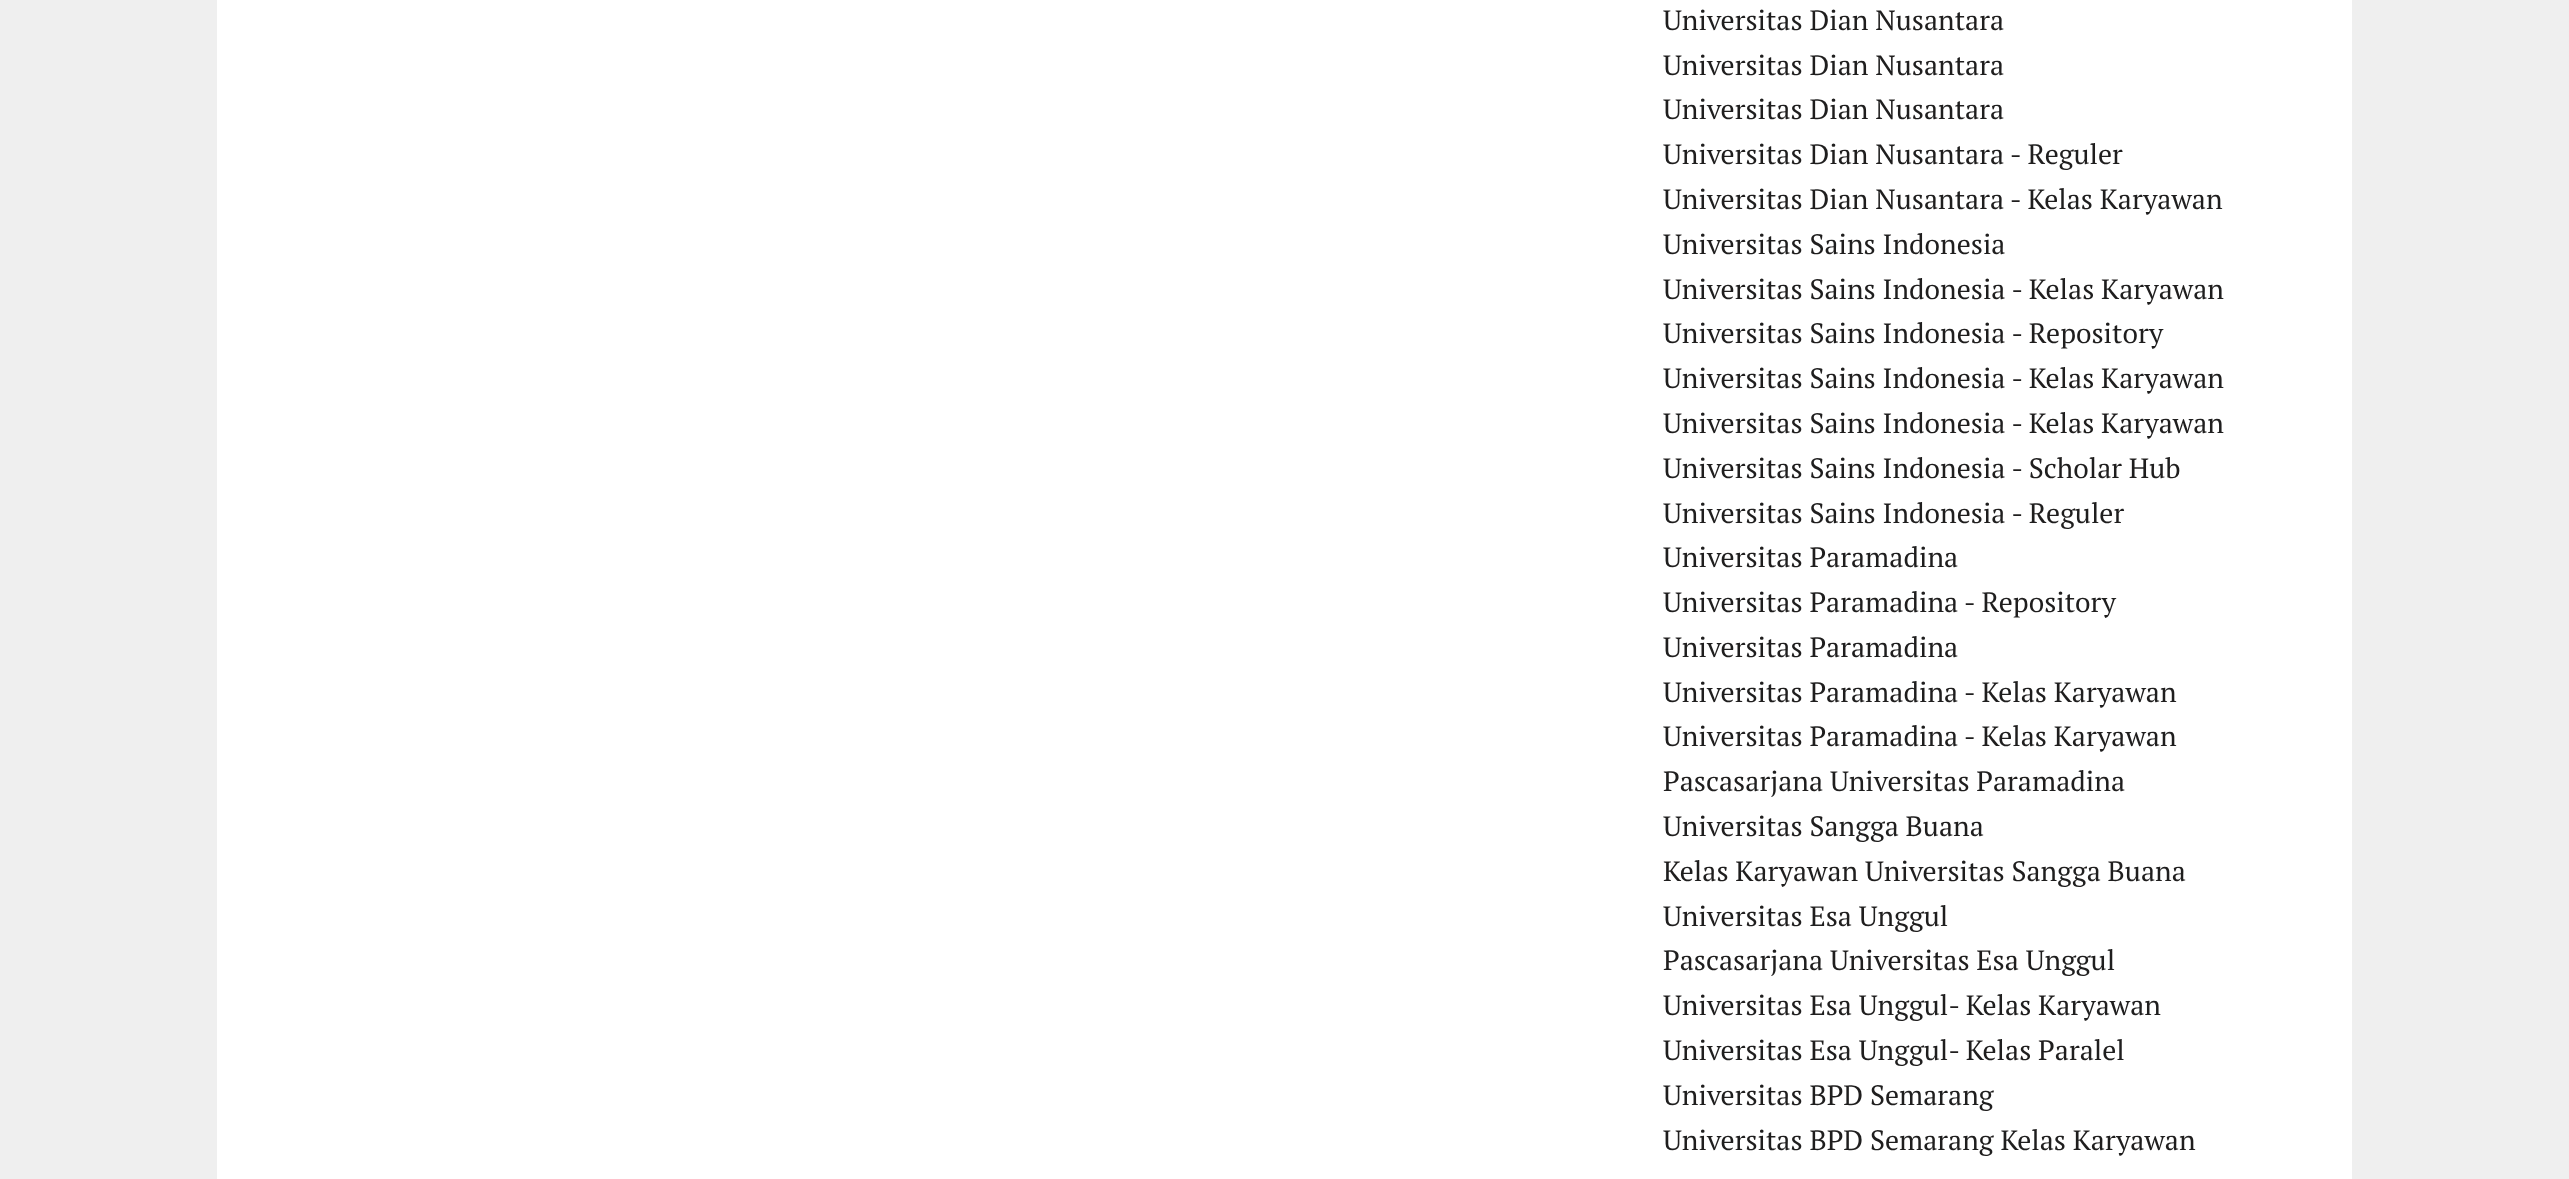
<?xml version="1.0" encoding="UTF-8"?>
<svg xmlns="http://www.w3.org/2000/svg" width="2569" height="1179">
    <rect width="100%" height="100%" fill="#EFEFEF"/>
    <rect x="217" y="0" width="2135" height="1179" fill="#FFFFFF"/>
    <text font-family="PT Serif" font-size="28" fill="#1F1E1E">
        <tspan x="1663" y="30">Universitas Dian Nusantara</tspan>
        <tspan x="1663" y="75">Universitas Dian Nusantara</tspan>
        <tspan x="1663" y="119">Universitas Dian Nusantara</tspan>
        <tspan x="1663" y="164">Universitas Dian Nusantara - Reguler</tspan>
        <tspan x="1663" y="209">Universitas Dian Nusantara - Kelas Karyawan</tspan>
        <tspan x="1663" y="254">Universitas Sains Indonesia</tspan>
        <tspan x="1663" y="299">Universitas Sains Indonesia - Kelas Karyawan</tspan>
        <tspan x="1663" y="343">Universitas Sains Indonesia - Repository</tspan>
        <tspan x="1663" y="388">Universitas Sains Indonesia - Kelas Karyawan</tspan>
        <tspan x="1663" y="433">Universitas Sains Indonesia - Kelas Karyawan</tspan>
        <tspan x="1663" y="478">Universitas Sains Indonesia - Scholar Hub</tspan>
        <tspan x="1663" y="523">Universitas Sains Indonesia - Reguler</tspan>
        <tspan x="1663" y="567">Universitas Paramadina</tspan>
        <tspan x="1663" y="612">Universitas Paramadina - Repository</tspan>
        <tspan x="1663" y="657">Universitas Paramadina</tspan>
        <tspan x="1663" y="702">Universitas Paramadina - Kelas Karyawan</tspan>
        <tspan x="1663" y="746">Universitas Paramadina - Kelas Karyawan</tspan>
        <tspan x="1663" y="791">Pascasarjana Universitas Paramadina</tspan>
        <tspan x="1663" y="836">Universitas Sangga Buana</tspan>
        <tspan x="1663" y="881">Kelas Karyawan Universitas Sangga Buana</tspan>
        <tspan x="1663" y="926">Universitas Esa Unggul</tspan>
        <tspan x="1663" y="970">Pascasarjana Universitas Esa Unggul</tspan>
        <tspan x="1663" y="1015">Universitas Esa Unggul- Kelas Karyawan</tspan>
        <tspan x="1663" y="1060">Universitas Esa Unggul- Kelas Paralel</tspan>
        <tspan x="1663" y="1105">Universitas BPD Semarang</tspan>
        <tspan x="1663" y="1150">Universitas BPD Semarang Kelas Karyawan</tspan>
    </text>
</svg>
